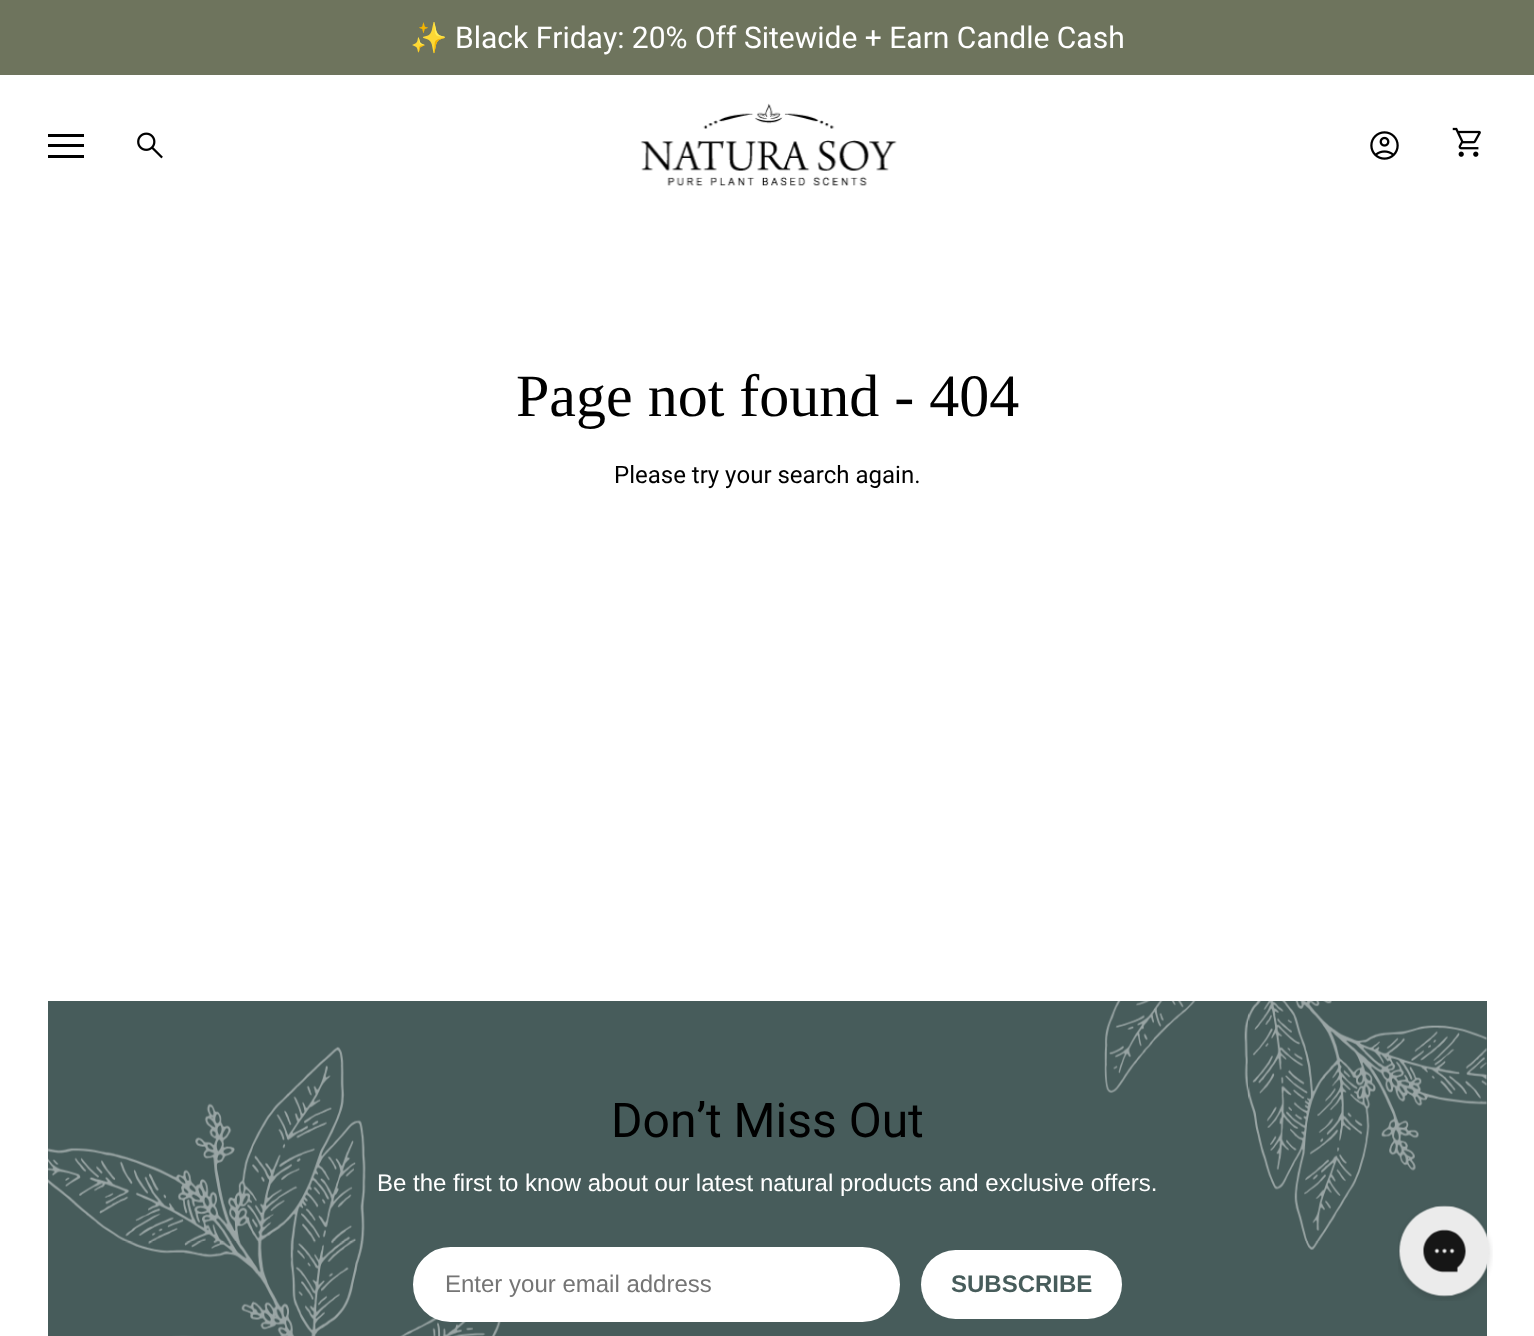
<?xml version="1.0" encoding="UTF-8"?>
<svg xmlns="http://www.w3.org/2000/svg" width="1534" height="1336">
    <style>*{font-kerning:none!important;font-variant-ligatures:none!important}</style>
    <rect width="100%" height="100%" fill="#FFFFFF"/>
    <rect x="0" y="0" width="1534" height="75" fill="#6E745D"/>
    <text x="410" y="48" font-family="Noto Color Emoji" font-size="30" fill="#FFFFFF">✨</text>
    <text x="455" y="48" font-family="Roboto" font-size="30" fill="#FFFFFF">Black Friday: 20% Off Sitewide + Earn Candle Cash</text>
    <rect x="48" y="134" width="36" height="3" fill="#000000"/>
    <rect x="48" y="144" width="36" height="3" fill="#000000"/>
    <rect x="48" y="155" width="36" height="3" fill="#000000"/>
    <image x="137" y="132" width="26" height="27" href="img_01.png"/>
    <image x="640" y="103" width="257" height="83" href="img_02.png"/>
    <image x="1370" y="131" width="29" height="29" href="img_03.png"/>
    <image x="1452" y="127" width="29" height="30" href="img_04.png"/>
    <text x="516" y="416" font-family="Liberation Serif" font-size="60" fill="#000000">Page not found - 404</text>
    <text x="614" y="483" font-family="Roboto" font-size="24" fill="#000000">Please try your search again.</text>
    <rect x="48" y="1001" width="1439" height="335" fill="#475C5B"/>
    <image x="48" y="1001" width="1439" height="335" href="img_05.png"/>
    <text x="611" y="1137" font-family="Roboto" font-size="48" fill="#000000">Don’t Miss Out</text>
    <text x="377" y="1191" font-family="Liberation Sans" font-size="24" fill="#FFFFFF">Be the first to know about our latest natural products and exclusive offers.</text>
    <rect x="414.5" y="1248.5" width="484" height="72" rx="36" fill="#FFFFFF" stroke="#FFFFFF" stroke-width="3"/>
    <text x="445" y="1292" font-family="Liberation Sans" font-size="24" fill="#757575">Enter your email address</text>
    <rect x="921" y="1250" width="201" height="69" rx="34.5" fill="#FFFFFF"/>
    <text x="951" y="1292" font-family="Liberation Sans" font-size="24" font-weight="700" fill="#475C5B">SUBSCRIBE</text>
    <image x="1398" y="1205" width="95" height="96" href="img_06.png"/>
</svg>
